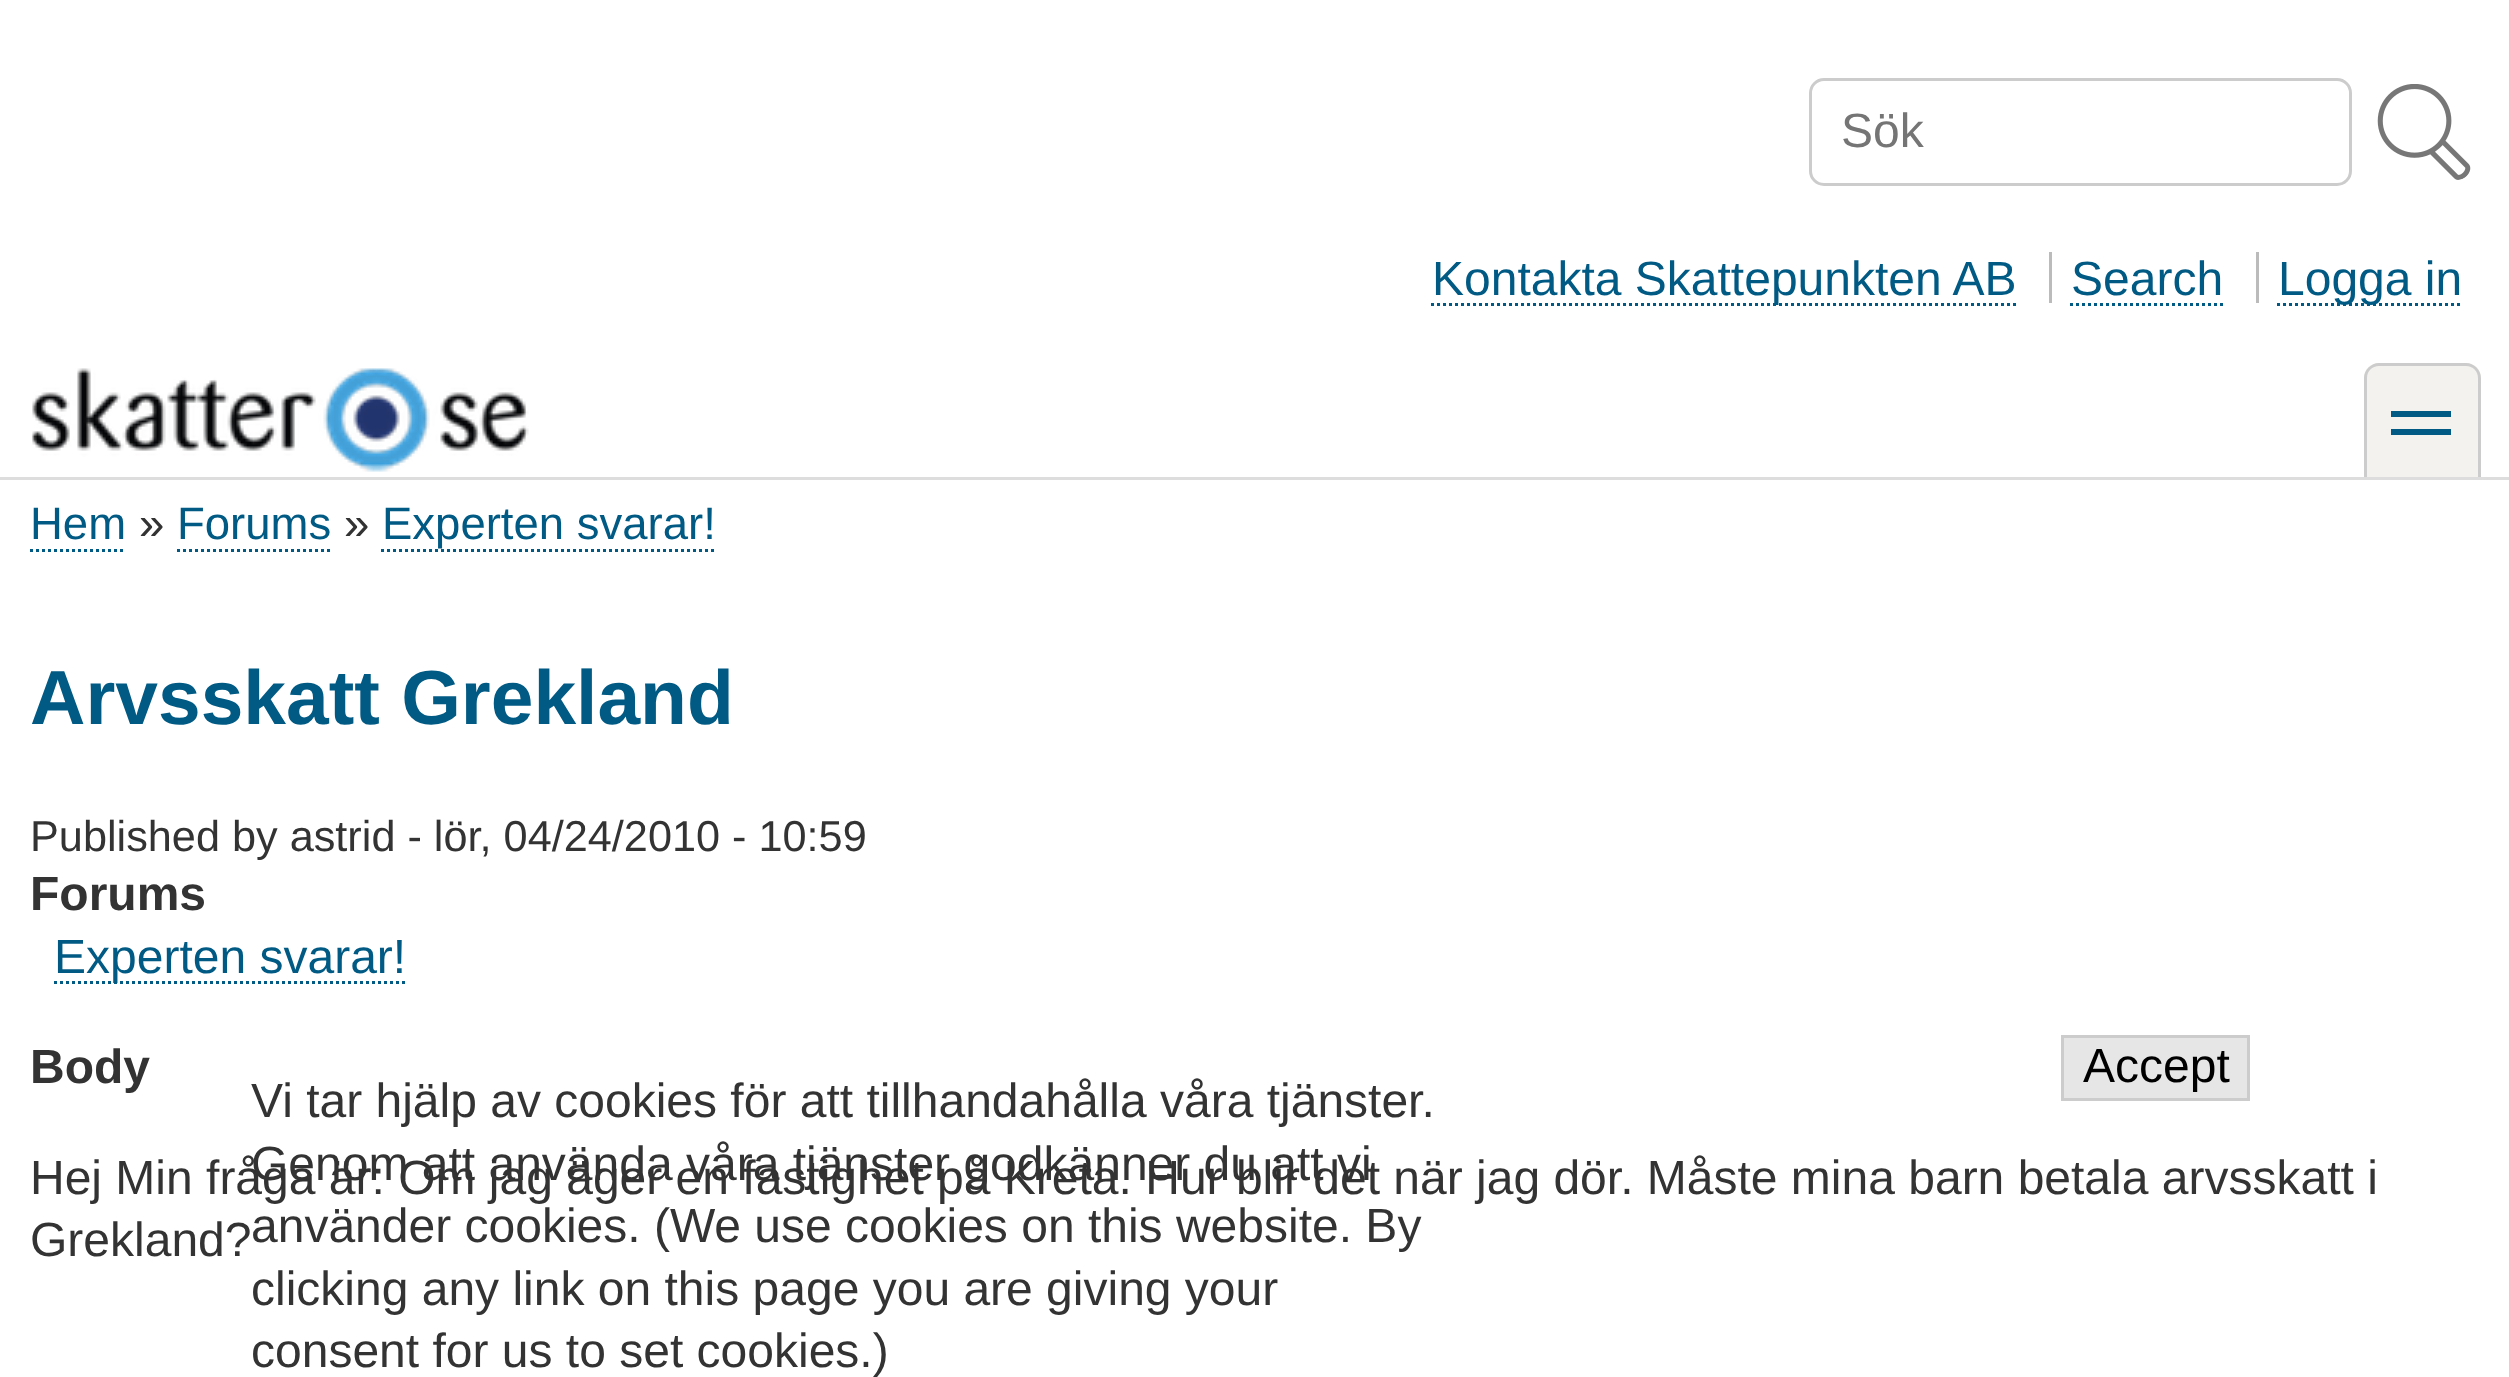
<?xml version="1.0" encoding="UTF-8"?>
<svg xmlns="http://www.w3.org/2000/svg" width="2509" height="1377">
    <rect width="100%" height="100%" fill="#FFFFFF"/>
    <rect x="1810.5" y="79.5" width="540" height="105" rx="13.5" fill="none" stroke="#CCCCCC" stroke-width="3"/>
    <text x="1841" y="147" font-family="Liberation Sans" font-size="48" fill="#757575">Sök</text>
    <image x="2377" y="84" width="94" height="96" href="img_01.png"/>
    <path d="M 1431 304.5 H 2016" fill="none" stroke="#005A84" stroke-width="3" stroke-dasharray="3 3"/>
    <text x="1432" y="295" font-family="Liberation Sans" font-size="48" fill="#005A84">Kontakta Skattepunkten AB</text>
    <rect x="2049" y="252" width="3" height="51" fill="#BBBBBB"/>
    <text x="2071" y="295" font-family="Liberation Sans" font-size="48" fill="#005A84">Search</text>
    <rect x="2256" y="252" width="3" height="51" fill="#BBBBBB"/>
    <path d="M 2070 304.5 H 2223" fill="none" stroke="#005A84" stroke-width="3" stroke-dasharray="3 3"/>
    <path d="M 2277 304.5 H 2463" fill="none" stroke="#005A84" stroke-width="3" stroke-dasharray="3 3"/>
    <text x="2278" y="295" font-family="Liberation Sans" font-size="48" fill="#005A84">Logga in</text>
    <rect x="0" y="477" width="2509" height="3" fill="#DDDDDD"/>
    <path d="M 2379 363 H 2466 C 2474.5 363 2481 369.5 2481 378 V 477 H 2364 V 378 C 2364 369.5 2370.5 363 2379 363 Z" fill="#F4F2EE"/>
    <path d="M 2379 363 H 2466 C 2474 363 2481 370 2481 378 V 477 H 2364 V 378 C 2364 370 2371 363 2379 363 Z M 2379 366 H 2466 C 2473 366 2478 371 2478 378 V 477 H 2367 V 378 C 2367 371 2372 366 2379 366 Z" fill="#CCCCCC" fill-rule="evenodd"/>
    <rect x="2391" y="411" width="60" height="6" fill="#005A84"/>
    <rect x="2391" y="429" width="60" height="6" fill="#005A84"/>
    <image x="31" y="368" width="498" height="104" href="img_02.png"/>
    <text x="30" y="539" font-family="Liberation Sans" font-size="45.5" fill="#005A84">Hem</text>
    <path d="M 30 550.5 H 126" fill="none" stroke="#005A84" stroke-width="3" stroke-dasharray="3 3"/>
    <text x="139" y="539" font-family="Liberation Sans" font-size="45.5" fill="#333333">»</text>
    <text x="177" y="539" font-family="Liberation Sans" font-size="45.5" fill="#005A84">Forums</text>
    <path d="M 177 550.5 H 330" fill="none" stroke="#005A84" stroke-width="3" stroke-dasharray="3 3"/>
    <text x="344" y="539" font-family="Liberation Sans" font-size="45.5" fill="#333333">»</text>
    <text x="382" y="539" font-family="Liberation Sans" font-size="45.5" fill="#005A84">Experten svarar!</text>
    <path d="M 381 550.5 H 717" fill="none" stroke="#005A84" stroke-width="3" stroke-dasharray="3 3"/>
    <text x="30" y="724" font-family="Liberation Sans" font-size="76.75" font-weight="700" fill="#005A84">Arvsskatt Grekland</text>
    <text x="30" y="851" font-family="Liberation Sans" font-size="43.25" fill="#333333">Published by astrid - lör, 04/24/2010 - 10:59</text>
    <text x="30" y="910" font-family="Liberation Sans" font-size="48" font-weight="700" fill="#333333">Forums</text>
    <path d="M 54 982.5 H 405" fill="none" stroke="#005A84" stroke-width="3" stroke-dasharray="3 3"/>
    <text x="54" y="973" font-family="Liberation Sans" font-size="48" fill="#005A84">Experten svarar!</text>
    <text x="30" y="1083" font-family="Liberation Sans" font-size="48" font-weight="700" fill="#333333">Body</text>
    <text font-family="Liberation Sans" font-size="48" fill="#333333">
        <tspan x="30" y="1194">Hej Min fråga är: Om jag äger en fastighet på Kreta. Hur blir det när jag dör. Måste mina barn betala arvsskatt i</tspan>
        <tspan x="30" y="1256">Grekland?</tspan>
    </text>
    <rect x="2062.5" y="1036.5" width="186" height="63" fill="#E6E6E6" stroke="#CCCCCC" stroke-width="3"/>
    <text x="2083" y="1082" font-family="Liberation Sans" font-size="48" fill="#000000">Accept</text>
    <text font-family="Liberation Sans" font-size="48" fill="#333333">
        <tspan x="251" y="1117">Vi tar hjälp av cookies för att tillhandahålla våra tjänster.</tspan>
        <tspan x="251" y="1180">Genom att använda våra tjänster godkänner du att vi</tspan>
        <tspan x="251" y="1242">använder cookies. (We use cookies on this website. By</tspan>
        <tspan x="251" y="1305">clicking any link on this page you are giving your</tspan>
        <tspan x="251" y="1367">consent for us to set cookies.)</tspan>
    </text>
</svg>
